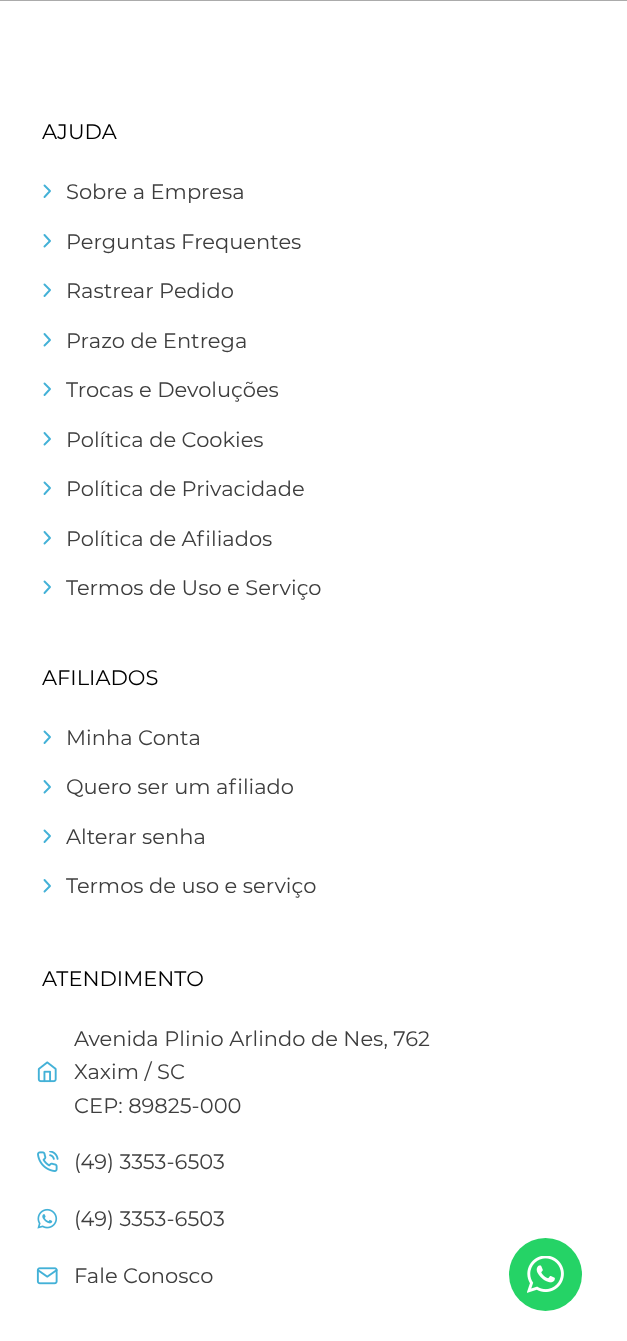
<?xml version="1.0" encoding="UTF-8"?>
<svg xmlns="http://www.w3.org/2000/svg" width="627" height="1341">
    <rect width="100%" height="100%" fill="#FFFFFF"/>
    <rect x="0" y="0" width="627" height="1" fill="#ABABAB"/>
    <text x="42" y="139" font-family="Montserrat" font-size="21" fill="#000000">AJUDA</text>
    <path d="M 44.5 197 L 50 191 L 44.5 185.5" fill="none" stroke="#43B1D7" stroke-width="1.9" stroke-linecap="round" stroke-linejoin="round"/>
    <text x="66" y="199" font-family="Montserrat" font-size="21" fill="#3E3E3E">Sobre a Empresa</text>
    <path d="M 44.5 246.5 L 50 241 L 44.5 235 M 44.5 296 L 50 290 L 44.5 284.5" fill="none" stroke="#43B1D7" stroke-width="1.9" stroke-linecap="round" stroke-linejoin="round"/>
    <text x="66" y="249" font-family="Montserrat" font-size="21" fill="#3E3E3E">Perguntas Frequentes</text>
    <text x="66" y="298" font-family="Montserrat" font-size="21" fill="#3E3E3E">Rastrear Pedido</text>
    <path d="M 44.5 345.5 L 50 340 L 44.5 334 M 44.5 395 L 50 389 L 44.5 383.5" fill="none" stroke="#43B1D7" stroke-width="1.9" stroke-linecap="round" stroke-linejoin="round"/>
    <text x="66" y="348" font-family="Montserrat" font-size="21" fill="#3E3E3E">Prazo de Entrega</text>
    <text x="66" y="397" font-family="Montserrat" font-size="21" fill="#3E3E3E">Trocas e Devoluções</text>
    <path d="M 44.5 444.5 L 50 439 L 44.5 433 M 44.5 494 L 50 488 L 44.5 482.5" fill="none" stroke="#43B1D7" stroke-width="1.9" stroke-linecap="round" stroke-linejoin="round"/>
    <text x="66" y="447" font-family="Montserrat" font-size="21" fill="#3E3E3E">Política de Cookies</text>
    <text x="66" y="496" font-family="Montserrat" font-size="21" fill="#3E3E3E">Política de Privacidade</text>
    <path d="M 44.5 543.5 L 50 538 L 44.5 532 M 44.5 593 L 50 587 L 44.5 581.5" fill="none" stroke="#43B1D7" stroke-width="1.9" stroke-linecap="round" stroke-linejoin="round"/>
    <text x="66" y="546" font-family="Montserrat" font-size="21" fill="#3E3E3E">Política de Afiliados</text>
    <text x="66" y="595" font-family="Montserrat" font-size="21" fill="#3E3E3E">Termos de Uso e Serviço</text>
    <text x="42" y="685" font-family="Montserrat" font-size="21" fill="#000000">AFILIADOS</text>
    <path d="M 44.5 743 L 50 737 L 44.5 731.5" fill="none" stroke="#43B1D7" stroke-width="1.9" stroke-linecap="round" stroke-linejoin="round"/>
    <text x="66" y="745" font-family="Montserrat" font-size="21" fill="#3E3E3E">Minha Conta</text>
    <path d="M 44.5 792.5 L 50 787 L 44.5 781 M 44.5 842 L 50 836 L 44.5 830.5" fill="none" stroke="#43B1D7" stroke-width="1.9" stroke-linecap="round" stroke-linejoin="round"/>
    <text x="66" y="794" font-family="Montserrat" font-size="21" fill="#3E3E3E">Quero ser um afiliado</text>
    <text x="66" y="844" font-family="Montserrat" font-size="21" fill="#3E3E3E">Alterar senha</text>
    <path d="M 44.5 891.5 L 50 886 L 44.5 880" fill="none" stroke="#43B1D7" stroke-width="1.9" stroke-linecap="round" stroke-linejoin="round"/>
    <text x="66" y="893" font-family="Montserrat" font-size="21" fill="#3E3E3E">Termos de uso e serviço</text>
    <text x="42" y="986" font-family="Montserrat" font-size="21" fill="#000000">ATENDIMENTO</text>
    <image x="37" y="1061" width="20" height="22" href="img_01.png"/>
    <text font-family="Montserrat" font-size="21" fill="#3E3E3E">
        <tspan x="74" y="1046">Avenida Plinio Arlindo de Nes, 762</tspan>
        <tspan x="74" y="1079">Xaxim / SC</tspan>
        <tspan x="74" y="1113">CEP: 89825-000</tspan>
    </text>
    <image x="37" y="1151" width="22" height="21" href="img_02.png"/>
    <text x="74" y="1169" font-family="Montserrat" font-size="21" fill="#3E3E3E">(49) 3353-6503</text>
    <image x="37" y="1208" width="21" height="21" href="img_03.png"/>
    <text x="74" y="1226" font-family="Montserrat" font-size="21" fill="#3E3E3E">(49) 3353-6503</text>
    <image x="36" y="1267" width="22" height="18" href="img_04.png"/>
    <text x="74" y="1283" font-family="Montserrat" font-size="21" fill="#3E3E3E">Fale Conosco</text>
    <circle cx="545.5" cy="1274.5" r="36.5" fill="#25D366"/>
    <image x="527" y="1256" width="37" height="37" href="img_05.png"/>
</svg>
